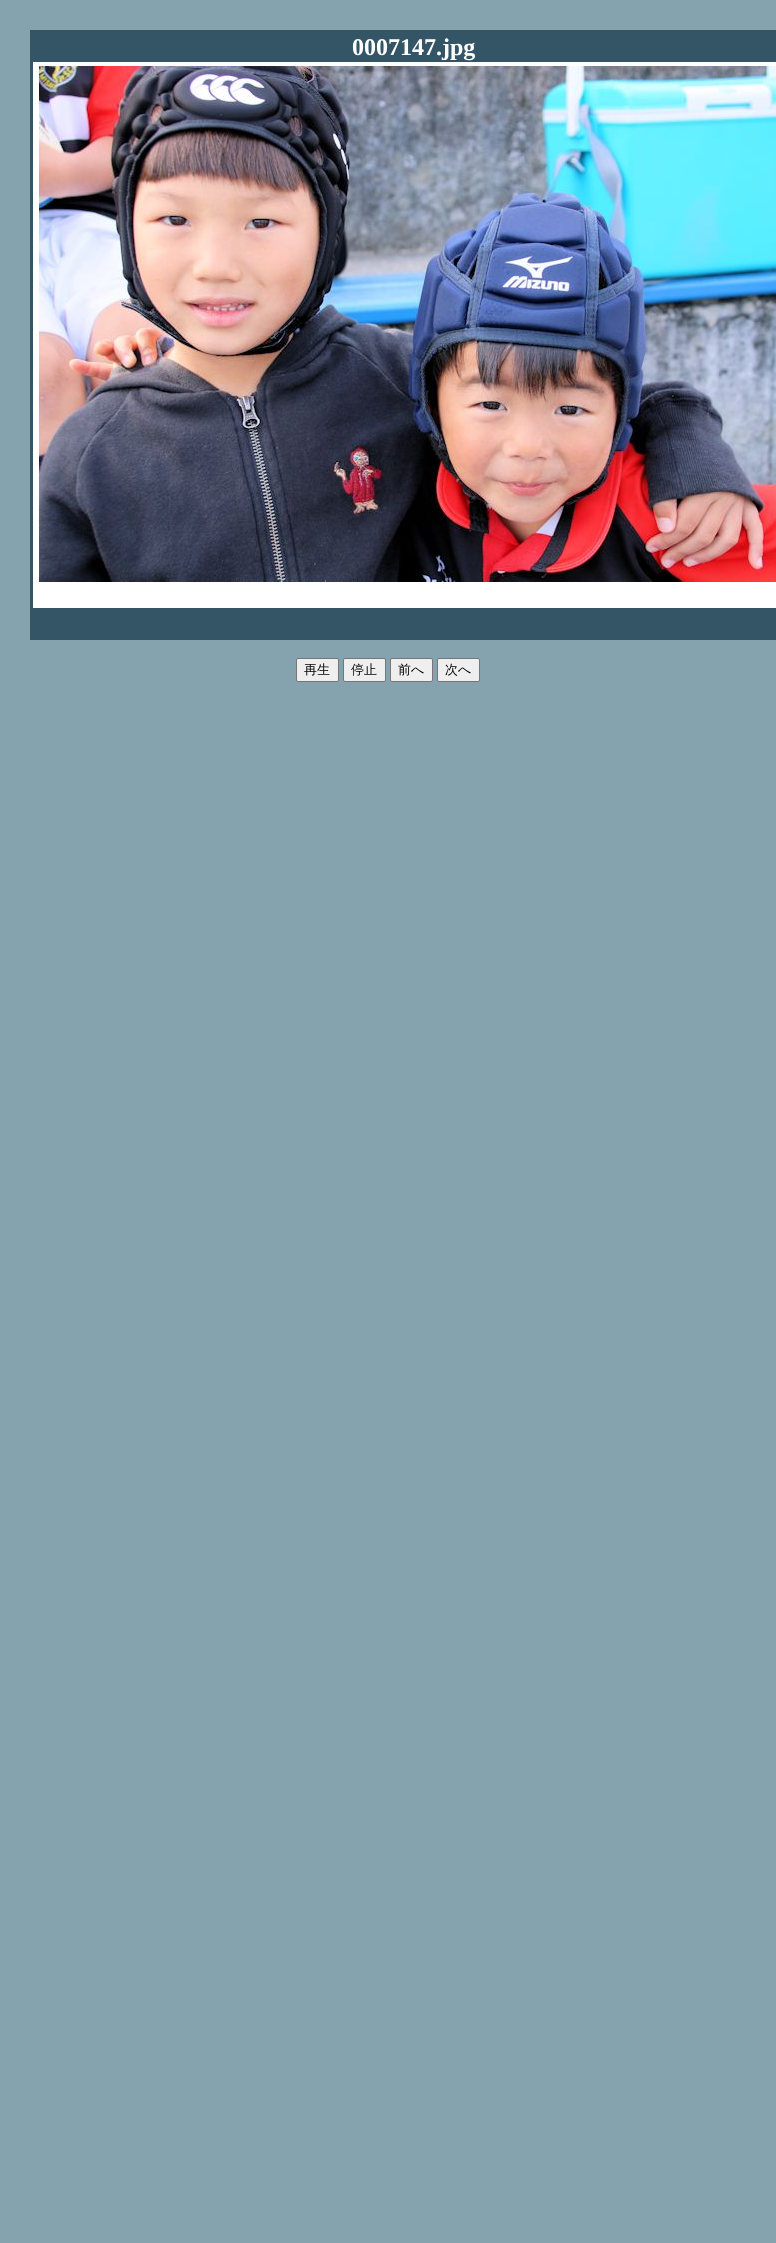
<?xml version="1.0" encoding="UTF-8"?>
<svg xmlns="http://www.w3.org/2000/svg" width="776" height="2243">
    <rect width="100%" height="100%" fill="#85A3AE"/>
    <rect x="30" y="30" width="746" height="3" fill="#335566"/>
    <rect x="30" y="637" width="746" height="3" fill="#335566"/>
    <rect x="30" y="30" width="3" height="610" fill="#335566"/>
    <rect x="33" y="33" width="743" height="29" fill="#335566"/>
    <text x="352" y="55" font-family="Liberation Serif" font-size="24" font-weight="700" fill="#FFFFFF">0007147.jpg</text>
    <rect x="33" y="62" width="743" height="546" fill="#FFFFFF"/>
    <image x="39" y="66" width="737" height="516" href="img_01.png"/>
    <rect x="33" y="608" width="743" height="29" fill="#335566"/>
    <rect x="296.5" y="658.5" width="42" height="23" rx="1.5" fill="#EFEFEF" stroke="#767676"/>
    <text x="304" y="674" font-family="WenQuanYi Zen Hei" font-size="13" font-weight="500" fill="#000000">再生</text>
    <rect x="343.5" y="658.5" width="42" height="23" rx="1.5" fill="#EFEFEF" stroke="#767676"/>
    <text x="351" y="674" font-family="WenQuanYi Zen Hei" font-size="13" font-weight="500" fill="#000000">停止</text>
    <rect x="390.5" y="658.5" width="42" height="23" rx="1.5" fill="#EFEFEF" stroke="#767676"/>
    <text x="398" y="674" font-family="WenQuanYi Zen Hei" font-size="13" font-weight="500" fill="#000000">前へ</text>
    <rect x="437.5" y="658.5" width="42" height="23" rx="1.5" fill="#EFEFEF" stroke="#767676"/>
    <text x="445" y="674" font-family="WenQuanYi Zen Hei" font-size="13" font-weight="500" fill="#000000">次へ</text>
</svg>
